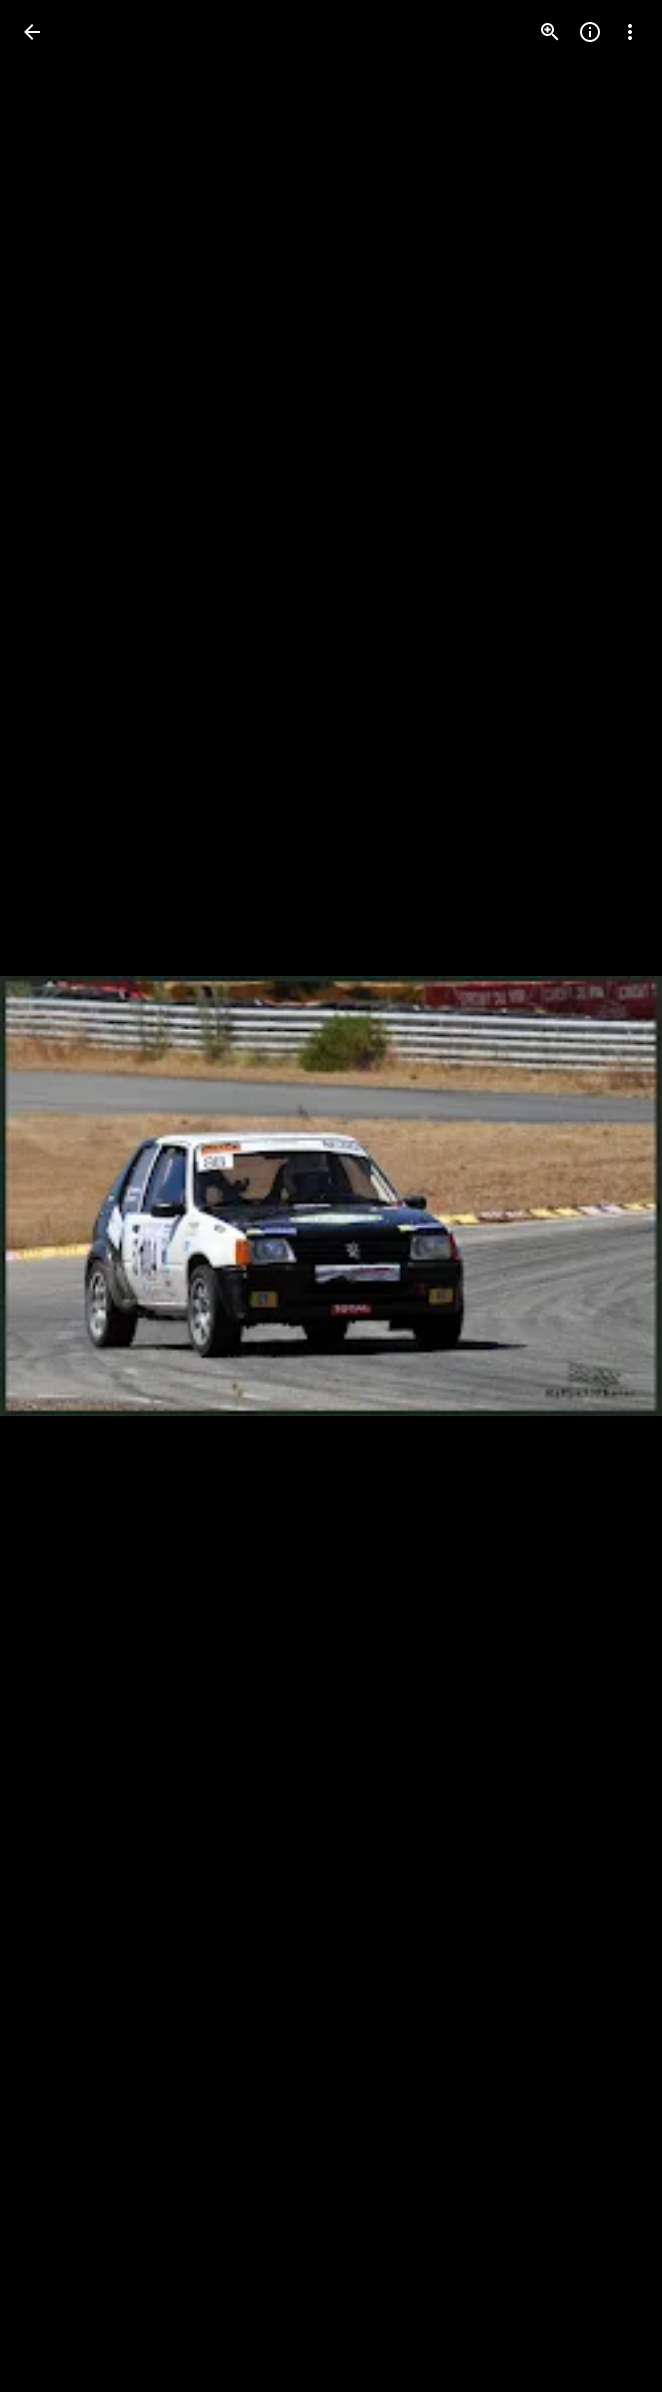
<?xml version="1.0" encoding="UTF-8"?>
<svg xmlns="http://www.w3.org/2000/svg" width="662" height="2392">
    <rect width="100%" height="100%" fill="#000000"/>
    <image x="24" y="24" width="16" height="16" href="img_01.png"/>
    <image x="541" y="23" width="18" height="18" href="img_02.png"/>
    <image x="580" y="22" width="20" height="20" href="img_03.png"/>
    <image x="628" y="24" width="4" height="16" href="img_04.png"/>
    <image x="0" y="976" width="662" height="440" href="img_05.png"/>
</svg>
